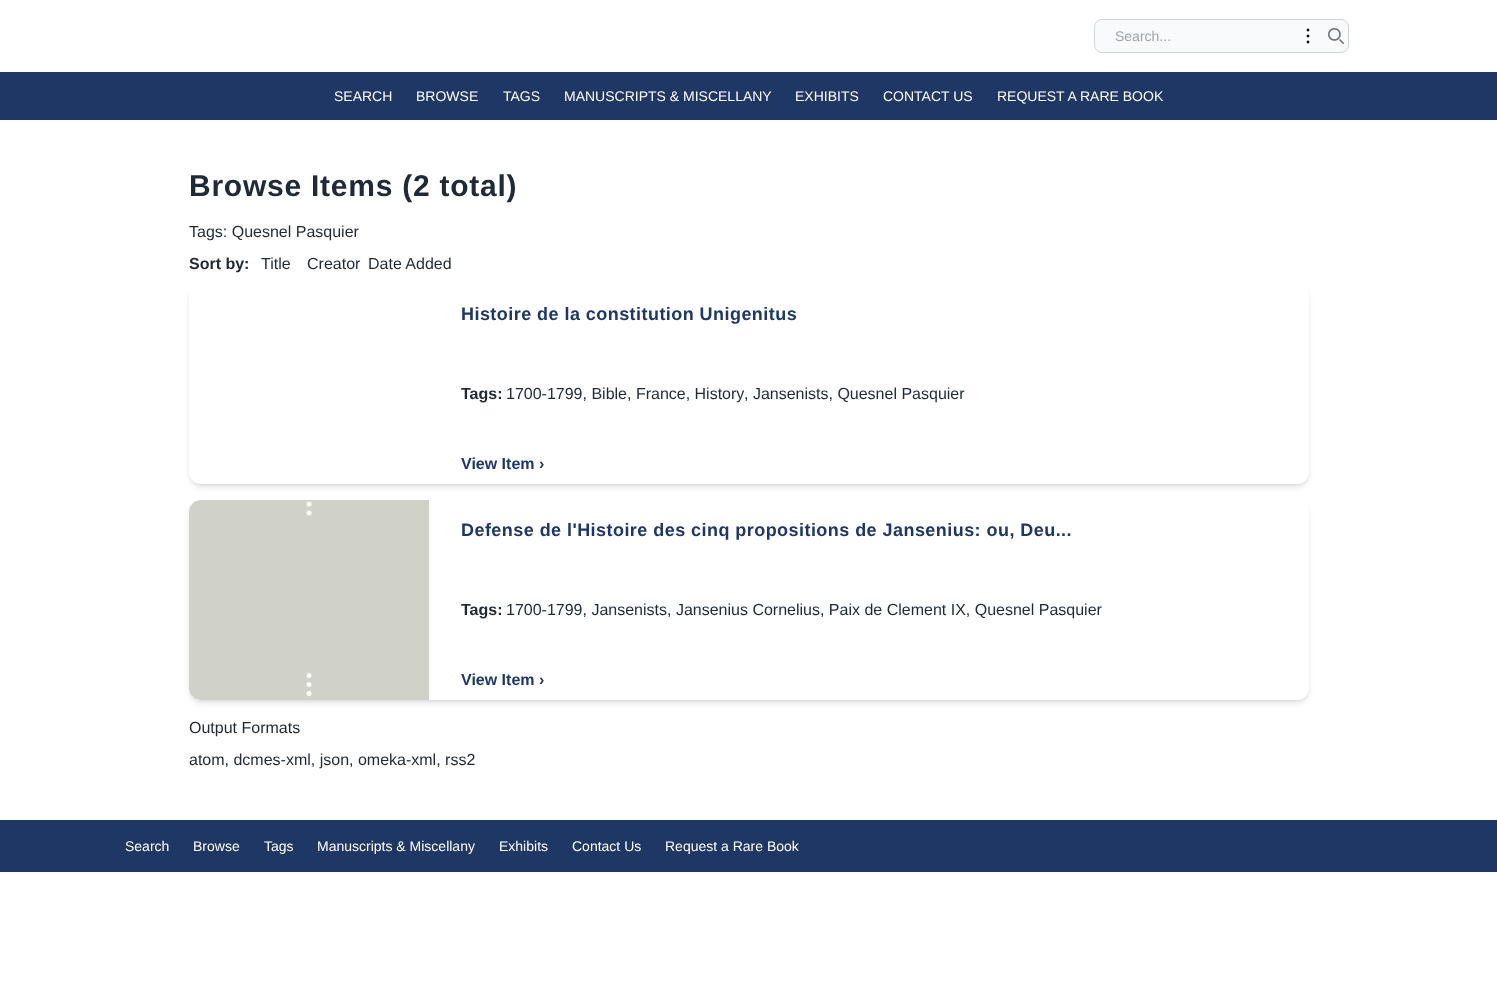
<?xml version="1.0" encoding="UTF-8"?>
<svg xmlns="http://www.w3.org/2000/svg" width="1497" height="1005">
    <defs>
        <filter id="blur1" x="-50%" y="-200%" width="200%" height="500%"><feGaussianBlur stdDeviation="2"/></filter>
        <filter id="blur2" x="-50%" y="-200%" width="200%" height="500%"><feGaussianBlur stdDeviation="3"/></filter>
    </defs>
    <rect width="100%" height="100%" fill="#FFFFFF"/>
    <rect x="1094.5" y="19.5" width="254" height="33" rx="7.5" fill="#F9FAFB" stroke="#D1D5DB"/>
    <text x="1115" y="41" font-family="Liberation Sans" font-size="14" fill="#9CA3AF">Search...</text>
    <image x="1306" y="28" width="4" height="16" href="img_01.png"/>
    <image x="1328" y="28" width="16" height="16" href="img_02.png"/>
    <rect x="0" y="72" width="1497" height="48" fill="#1E3765"/>
    <text x="334" y="101" font-family="Liberation Sans" font-size="14" fill="#FFFFFF">SEARCH</text>
    <text x="416" y="101" font-family="Liberation Sans" font-size="14" fill="#FFFFFF">BROWSE</text>
    <text x="503" y="101" font-family="Liberation Sans" font-size="14" fill="#FFFFFF">TAGS</text>
    <text x="564" y="101" font-family="Liberation Sans" font-size="14" fill="#FFFFFF">MANUSCRIPTS &amp; MISCELLANY</text>
    <text x="795" y="101" font-family="Liberation Sans" font-size="14" fill="#FFFFFF">EXHIBITS</text>
    <text x="883" y="101" font-family="Liberation Sans" font-size="14" fill="#FFFFFF">CONTACT US</text>
    <text x="997" y="101" font-family="Liberation Sans" font-size="14" fill="#FFFFFF">REQUEST A RARE BOOK</text>
    <text x="189" y="196" font-family="Liberation Sans" font-size="30" font-weight="700" letter-spacing="0.75" fill="#1F2937">Browse Items (2 total)</text>
    <text x="189" y="237" font-family="Liberation Sans" font-size="16" fill="#1F2937">Tags: Quesnel Pasquier</text>
    <text x="189" y="269" font-family="Liberation Sans" font-size="16" font-weight="700" fill="#1F2937">Sort by:</text>
    <text x="261" y="269" font-family="Liberation Sans" font-size="16" fill="#1F2937">Title</text>
    <text x="307" y="269" font-family="Liberation Sans" font-size="16" fill="#1F2937">Creator</text>
    <text x="368" y="269" font-family="Liberation Sans" font-size="16" fill="#1F2937">Date Added</text>
    <rect x="191" y="288" width="1116" height="196" rx="10" fill="#000000" fill-opacity="0.1" filter="url(#blur1)"/>
    <rect x="190" y="289" width="1118" height="198" rx="11" fill="#000000" fill-opacity="0.1" filter="url(#blur2)"/>
    <rect x="189" y="284" width="1120" height="200" rx="12" fill="#FFFFFF"/>
    <text x="461" y="320" font-family="Liberation Sans" font-size="18" font-weight="700" letter-spacing="0.45" fill="#1E3765">Histoire de la constitution Unigenitus</text>
    <text x="461" y="399" font-family="Liberation Sans" font-size="16" font-weight="700" fill="#1F2937">Tags:</text>
    <text x="506" y="399" font-family="Liberation Sans" font-size="16" fill="#1F2937">1700-1799, Bible, France, History</text>
    <text x="744" y="399" font-family="Liberation Sans" font-size="16" fill="#1F2937">, Jansenists, Quesnel Pasquier</text>
    <text x="461" y="469" font-family="Liberation Sans" font-size="16" font-weight="700" fill="#1E3765">View Item ›</text>
    <rect x="191" y="504" width="1116" height="196" rx="10" fill="#000000" fill-opacity="0.1" filter="url(#blur1)"/>
    <rect x="190" y="505" width="1118" height="198" rx="11" fill="#000000" fill-opacity="0.1" filter="url(#blur2)"/>
    <rect x="189" y="500" width="1120" height="200" rx="12" fill="#FFFFFF"/>
    <image x="189" y="500" width="240" height="200" href="img_03.png"/>
    <text x="461" y="536" font-family="Liberation Sans" font-size="18" font-weight="700" letter-spacing="0.45" fill="#1E3765">Defense de l'Histoire des cinq propositions de Jansenius: ou, Deu...</text>
    <text x="461" y="615" font-family="Liberation Sans" font-size="16" font-weight="700" fill="#1F2937">Tags:</text>
    <text x="506" y="615" font-family="Liberation Sans" font-size="16" fill="#1F2937">1700-1799, Jansenists, Jansenius Cornelius, Paix de Clement IX, Quesnel Pasquier</text>
    <text x="461" y="685" font-family="Liberation Sans" font-size="16" font-weight="700" fill="#1E3765">View Item ›</text>
    <text x="189" y="733" font-family="Liberation Sans" font-size="16" fill="#1F2937">Output Formats</text>
    <text x="189" y="765" font-family="Liberation Sans" font-size="16" fill="#1F2937">atom, dcmes-xml, json, omeka-xml, rss2</text>
    <rect x="0" y="820" width="1497" height="52" fill="#1E3765"/>
    <text x="125" y="851" font-family="Liberation Sans" font-size="14" fill="#FFFFFF">Search</text>
    <text x="193" y="851" font-family="Liberation Sans" font-size="14" fill="#FFFFFF">Browse</text>
    <text x="264" y="851" font-family="Liberation Sans" font-size="14" fill="#FFFFFF">Tags</text>
    <text x="317" y="851" font-family="Liberation Sans" font-size="14" fill="#FFFFFF">Manuscripts &amp; Miscellany</text>
    <text x="499" y="851" font-family="Liberation Sans" font-size="14" fill="#FFFFFF">Exhibits</text>
    <text x="572" y="851" font-family="Liberation Sans" font-size="14" fill="#FFFFFF">Contact Us</text>
    <text x="665" y="851" font-family="Liberation Sans" font-size="14" fill="#FFFFFF">Request a Rare Book</text>
</svg>
